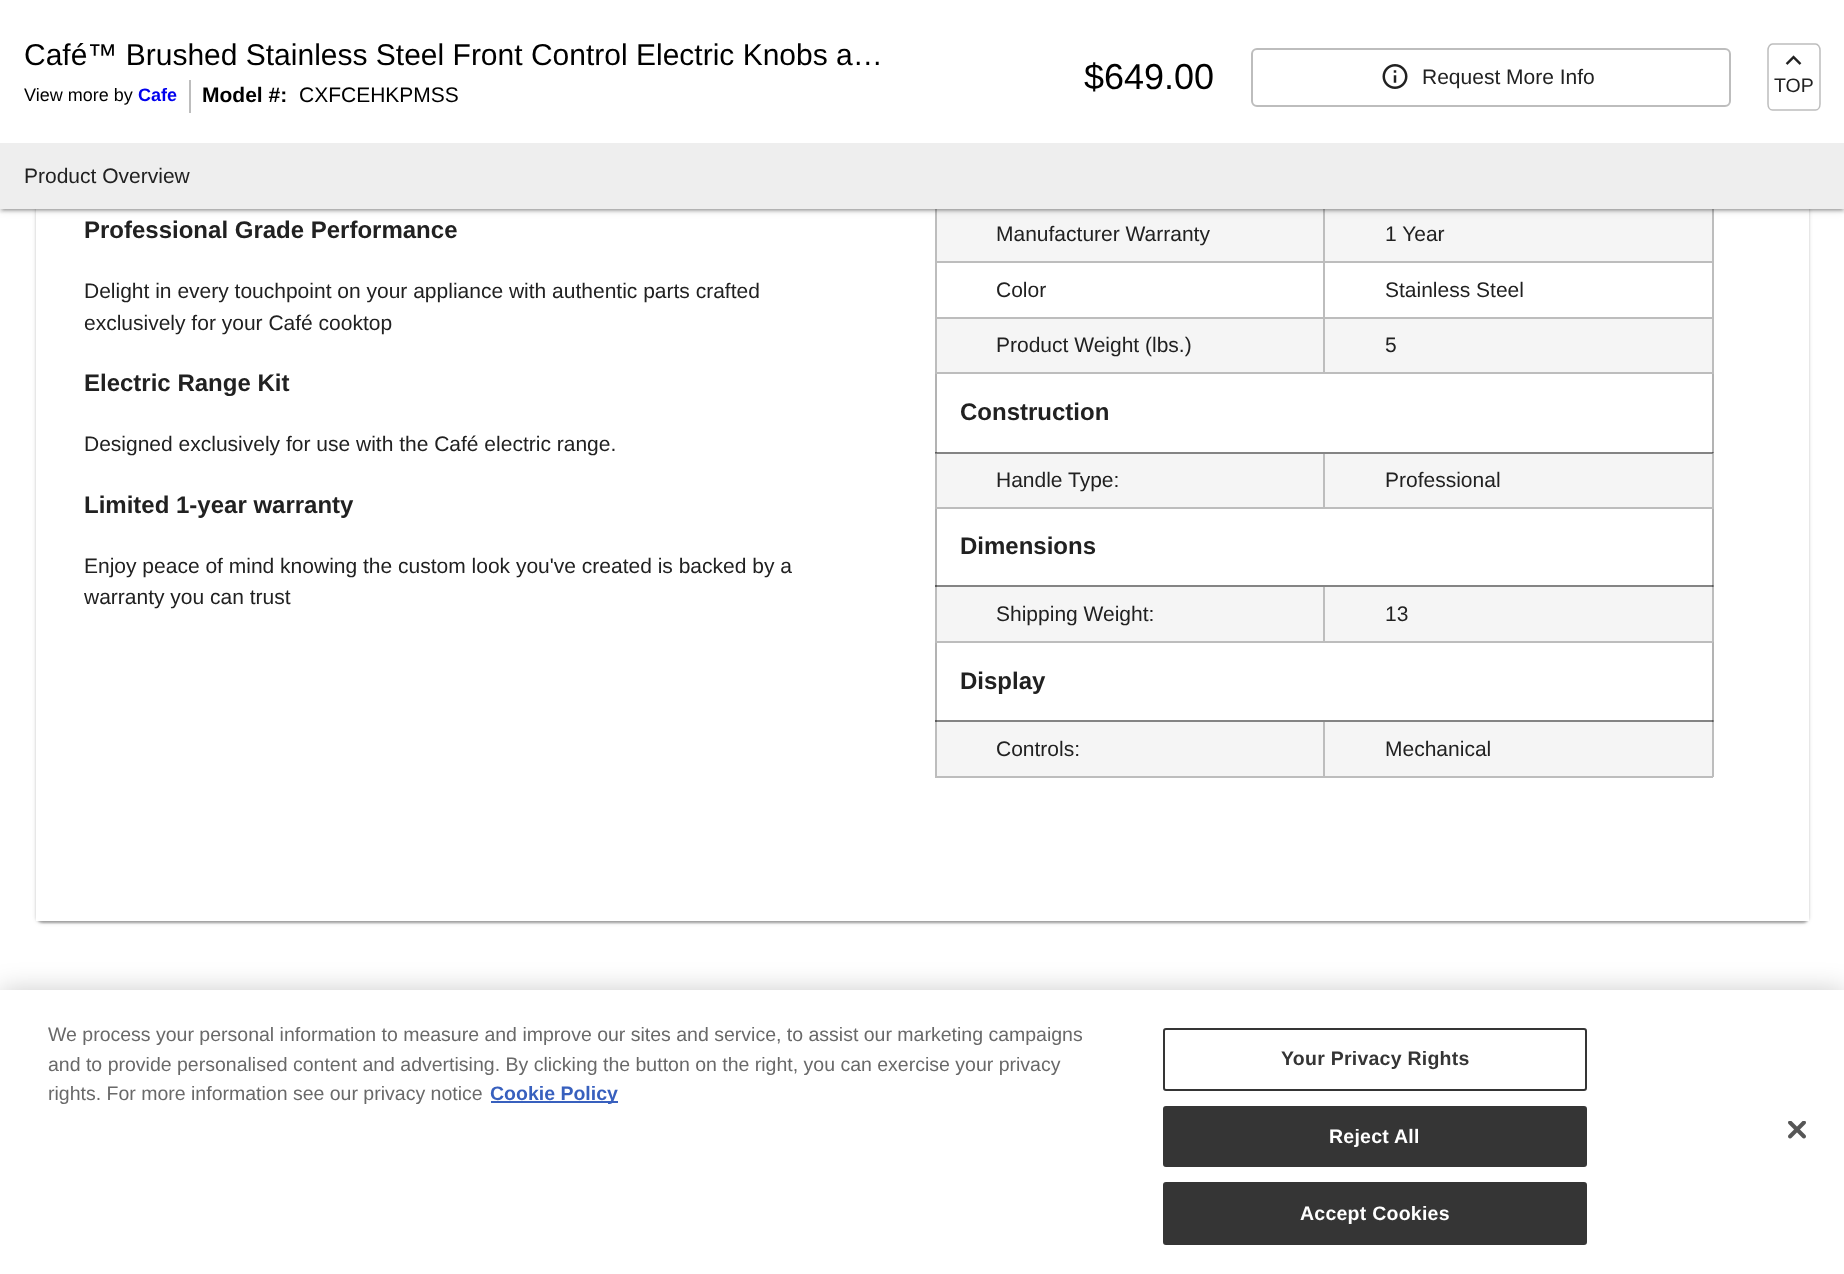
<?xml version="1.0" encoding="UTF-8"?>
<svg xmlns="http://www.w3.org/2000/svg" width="1844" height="1274">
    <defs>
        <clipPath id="clip1"><path d="M 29 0 H 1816 V 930 H 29 Z M 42 -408 H 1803 C 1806.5 -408 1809 -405.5 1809 -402 V 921 H 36 V -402 C 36 -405.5 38.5 -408 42 -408 Z" clip-rule="evenodd"/></clipPath>
        <filter id="blur1" x="-50%" y="-200%" width="200%" height="500%"><feGaussianBlur stdDeviation="2"/></filter>
        <clipPath id="clip2"><path d="M 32 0 H 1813 V 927 H 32 Z M 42 -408 H 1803 C 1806.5 -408 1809 -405.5 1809 -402 V 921 H 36 V -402 C 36 -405.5 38.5 -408 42 -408 Z" clip-rule="evenodd"/></clipPath>
        <filter id="blur2" x="-50%" y="-200%" width="200%" height="500%"><feGaussianBlur stdDeviation="1"/></filter>
        <clipPath id="clip3"><rect x="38" y="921" width="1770" height="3"/></clipPath>
        <filter id="blur3" x="-50%" y="-200%" width="200%" height="500%"><feGaussianBlur stdDeviation="4"/></filter>
        <filter id="blur4" x="-50%" y="-200%" width="200%" height="500%"><feGaussianBlur stdDeviation="1.5"/></filter>
        <filter id="blur5" x="-50%" y="-200%" width="200%" height="500%"><feGaussianBlur stdDeviation="13.5"/></filter>
    </defs>
    <rect width="100%" height="100%" fill="#FFFFFF"/>
    <rect x="935" y="372" width="2" height="81" fill="#B3B3B3"/>
    <rect x="1712" y="372" width="2" height="81" fill="#B3B3B3"/>
    <rect x="935" y="507" width="2" height="80" fill="#B3B3B3"/>
    <rect x="1712" y="507" width="2" height="80" fill="#B3B3B3"/>
    <rect x="935" y="641" width="2" height="81" fill="#B3B3B3"/>
    <rect x="1712" y="641" width="2" height="81" fill="#B3B3B3"/>
    <g clip-path="url(#clip1)">
        <rect x="36" y="-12" width="1773" height="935" rx="6" fill="#000000" fill-opacity="0.12" filter="url(#blur1)"/>
    </g>
    <g clip-path="url(#clip2)">
        <rect x="36" y="-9" width="1773" height="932" rx="6" fill="#000000" fill-opacity="0.14" filter="url(#blur2)"/>
    </g>
    <g clip-path="url(#clip3)">
        <rect x="38" y="-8" width="1770" height="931" rx="5" fill="#000000" fill-opacity="0.2" filter="url(#blur2)"/>
    </g>
    <rect x="937" y="209" width="775" height="52" fill="#F5F5F5"/>
    <rect x="1323" y="261" width="390" height="2" fill="#BDBDBD"/>
    <rect x="1323" y="317" width="390" height="2" fill="#BDBDBD"/>
    <rect x="937" y="319" width="775" height="53" fill="#F5F5F5"/>
    <rect x="1712" y="317" width="2" height="57" fill="#BDBDBD"/>
    <rect x="1323" y="372" width="390" height="2" fill="#BDBDBD"/>
    <rect x="1323" y="317" width="2" height="57" fill="#BDBDBD"/>
    <rect x="935" y="317" width="390" height="2" fill="#BDBDBD"/>
    <rect x="1323" y="261" width="2" height="57" fill="#BDBDBD"/>
    <rect x="935" y="261" width="390" height="2" fill="#BDBDBD"/>
    <rect x="1323" y="206" width="2" height="57" fill="#BDBDBD"/>
    <rect x="935" y="372" width="390" height="2" fill="#BDBDBD"/>
    <rect x="935" y="317" width="2" height="57" fill="#BDBDBD"/>
    <rect x="935" y="206" width="2" height="112" fill="#BDBDBD"/>
    <rect x="1712" y="206" width="2" height="112" fill="#BDBDBD"/>
    <rect x="0" y="2" width="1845" height="208" fill="#000000" fill-opacity="0.12" filter="url(#blur3)"/>
    <rect x="0" y="3" width="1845" height="209" fill="#000000" fill-opacity="0.14" filter="url(#blur4)"/>
    <rect x="3" y="8" width="1839" height="202" fill="#000000" fill-opacity="0.2" filter="url(#blur2)"/>
    <rect x="0" y="0" width="1844" height="143" fill="#FFFFFF"/>
    <text x="24" y="65" font-family="Liberation Sans" font-size="30" fill="#000000">Café™ Brushed Stainless Steel Front Control Electric Knobs a…</text>
    <text x="24" y="101" font-family="Liberation Sans" font-size="18" fill="#000000">View more by</text>
    <text x="138" y="101" font-family="Liberation Sans" font-size="18" font-weight="700" fill="#0000EE">Cafe</text>
    <rect x="189" y="80" width="2" height="33" fill="#BDBDBD"/>
    <text x="202" y="102" font-family="Liberation Sans" font-size="21" font-weight="700" fill="#000000">Model #:</text>
    <text x="299" y="102" font-family="Liberation Sans" font-size="21" fill="#000000">CXFCEHKPMSS</text>
    <text x="1084" y="89" font-family="Liberation Sans" font-size="36" fill="#000000">$649.00</text>
    <rect x="1252" y="49" width="478" height="57" rx="5" fill="none" stroke="#BDBDBD" stroke-width="2"/>
    <image x="1382" y="64" width="26" height="25" href="img_01.png"/>
    <text x="1422" y="84" font-family="Liberation Sans" font-size="21" fill="#212121">Request More Info</text>
    <path d="M 1772.5 44 H 1815.5 C 1818 44 1820 47 1820 50 V 104 C 1820 107.5 1818 110 1815.5 110 H 1772.5 C 1770 110 1768 107.5 1768 104 V 50 C 1768 47 1770 44 1772.5 44 Z" fill="none" stroke="#BDBDBD" stroke-width="1.5"/>
    <image x="1785" y="55" width="17" height="10" href="img_02.png"/>
    <text x="1774" y="92" font-family="Liberation Sans" font-size="19.5" fill="#212121">TOP</text>
    <rect x="0" y="143" width="1844" height="66" fill="#EEEEEE"/>
    <text x="24" y="183" font-family="Liberation Sans" font-size="21" fill="#212121">Product Overview</text>
    <text x="84" y="238" font-family="Liberation Sans" font-size="24" font-weight="700" fill="#212121">Professional Grade Performance</text>
    <text font-family="Liberation Sans" font-size="21" fill="#212121">
        <tspan x="84" y="298">Delight in every touchpoint on your appliance with authentic parts crafted</tspan>
        <tspan x="84" y="330">exclusively for your Café cooktop</tspan>
    </text>
    <text x="84" y="391" font-family="Liberation Sans" font-size="24" font-weight="700" fill="#212121">Electric Range Kit</text>
    <text x="84" y="451" font-family="Liberation Sans" font-size="21" fill="#212121">Designed exclusively for use with the Café electric range.</text>
    <text x="84" y="513" font-family="Liberation Sans" font-size="24" font-weight="700" fill="#212121">Limited 1-year warranty</text>
    <text font-family="Liberation Sans" font-size="21" fill="#212121">
        <tspan x="84" y="573">Enjoy peace of mind knowing the custom look you've created is backed by a</tspan>
        <tspan x="84" y="604">warranty you can trust</tspan>
    </text>
    <text x="996" y="241" font-family="Liberation Sans" font-size="21" fill="#212121">Manufacturer Warranty</text>
    <text x="1385" y="241" font-family="Liberation Sans" font-size="21" fill="#212121">1 Year</text>
    <text x="996" y="297" font-family="Liberation Sans" font-size="21" fill="#212121">Color</text>
    <text x="1385" y="297" font-family="Liberation Sans" font-size="21" fill="#212121">Stainless Steel</text>
    <text x="996" y="352" font-family="Liberation Sans" font-size="21" fill="#212121">Product Weight (lbs.)</text>
    <text x="1385" y="352" font-family="Liberation Sans" font-size="21" fill="#212121">5</text>
    <text x="960" y="420" font-family="Liberation Sans" font-size="24" font-weight="700" fill="#212121">Construction</text>
    <rect x="937" y="454" width="775" height="53" fill="#F5F5F5"/>
    <rect x="1323" y="452" width="390" height="2" fill="#848484"/>
    <rect x="1712" y="452" width="2" height="57" fill="#BDBDBD"/>
    <rect x="1323" y="507" width="390" height="2" fill="#BDBDBD"/>
    <rect x="1323" y="452" width="2" height="57" fill="#BDBDBD"/>
    <rect x="935" y="452" width="390" height="2" fill="#848484"/>
    <rect x="935" y="507" width="390" height="2" fill="#BDBDBD"/>
    <rect x="935" y="452" width="2" height="57" fill="#BDBDBD"/>
    <rect x="935" y="453" width="2" height="1" fill="#848484"/>
    <rect x="935" y="452" width="2" height="1" fill="#5C5C5C"/>
    <text x="996" y="487" font-family="Liberation Sans" font-size="21" fill="#212121">Handle Type:</text>
    <rect x="1712" y="452" width="1" height="2" fill="#848484"/>
    <rect x="1712" y="452" width="2" height="1" fill="#848484"/>
    <rect x="1712" y="452" width="1" height="1" fill="#5C5C5C"/>
    <text x="1385" y="487" font-family="Liberation Sans" font-size="21" fill="#212121">Professional</text>
    <text x="960" y="554" font-family="Liberation Sans" font-size="24" font-weight="700" fill="#212121">Dimensions</text>
    <rect x="937" y="587" width="775" height="54" fill="#F5F5F5"/>
    <rect x="1323" y="585" width="390" height="2" fill="#848484"/>
    <rect x="1712" y="585" width="2" height="57" fill="#BDBDBD"/>
    <rect x="1323" y="641" width="390" height="2" fill="#BDBDBD"/>
    <rect x="1323" y="585" width="2" height="57" fill="#BDBDBD"/>
    <rect x="935" y="585" width="390" height="2" fill="#848484"/>
    <rect x="935" y="641" width="390" height="2" fill="#BDBDBD"/>
    <rect x="935" y="585" width="2" height="57" fill="#BDBDBD"/>
    <rect x="935" y="585" width="2" height="2" fill="#5C5C5C"/>
    <text x="996" y="621" font-family="Liberation Sans" font-size="21" fill="#212121">Shipping Weight:</text>
    <rect x="1712" y="585" width="2" height="2" fill="#848484"/>
    <rect x="1712" y="585" width="1" height="2" fill="#5C5C5C"/>
    <text x="1385" y="621" font-family="Liberation Sans" font-size="21" fill="#212121">13</text>
    <text x="960" y="689" font-family="Liberation Sans" font-size="24" font-weight="700" fill="#212121">Display</text>
    <rect x="937" y="722" width="775" height="54" fill="#F5F5F5"/>
    <rect x="1323" y="720" width="390" height="2" fill="#848484"/>
    <rect x="1712" y="720" width="2" height="57" fill="#BDBDBD"/>
    <rect x="1323" y="776" width="390" height="2" fill="#BDBDBD"/>
    <rect x="1323" y="720" width="2" height="57" fill="#BDBDBD"/>
    <rect x="935" y="720" width="390" height="2" fill="#848484"/>
    <rect x="935" y="776" width="390" height="2" fill="#BDBDBD"/>
    <rect x="935" y="720" width="2" height="57" fill="#BDBDBD"/>
    <rect x="935" y="720" width="2" height="2" fill="#5C5C5C"/>
    <text x="996" y="756" font-family="Liberation Sans" font-size="21" fill="#212121">Controls:</text>
    <rect x="1712" y="720" width="2" height="2" fill="#848484"/>
    <rect x="1712" y="720" width="1" height="2" fill="#5C5C5C"/>
    <text x="1385" y="756" font-family="Liberation Sans" font-size="21" fill="#212121">Mechanical</text>
    <rect x="0" y="990" width="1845" height="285" fill="#000000" fill-opacity="0.2" filter="url(#blur5)"/>
    <rect x="0" y="990" width="1844" height="284" fill="#FFFFFF"/>
    <text font-family="Liberation Sans" font-size="19.5" fill="#696969">
        <tspan x="48" y="1041">We process your personal information to measure and improve our sites and service, to assist our marketing campaigns</tspan>
        <tspan x="48" y="1071">and to provide personalised content and advertising. By clicking the button on the right, you can exercise your privacy</tspan>
        <tspan x="48" y="1100">rights. For more information see our privacy notice</tspan>
    </text>
    <rect x="491" y="1101" width="127" height="2" fill="#3860BE"/>
    <text x="490" y="1100" font-family="Liberation Sans" font-size="19.5" font-weight="700" fill="#3860BE">Cookie Policy</text>
    <rect x="1164" y="1029" width="422" height="61" rx="2" fill="none" stroke="#353535" stroke-width="2"/>
    <text x="1281" y="1065" font-family="Liberation Sans" font-size="19.5" font-weight="700" letter-spacing="0.25" fill="#353535">Your Privacy Rights</text>
    <rect x="1164" y="1107" width="422" height="59" rx="2" fill="#353535" stroke="#353535" stroke-width="2"/>
    <text x="1329" y="1143" font-family="Liberation Sans" font-size="19.5" font-weight="700" letter-spacing="0.25" fill="#FFFFFF">Reject All</text>
    <rect x="1164" y="1183" width="422" height="61" rx="2" fill="#353535" stroke="#353535" stroke-width="2"/>
    <text x="1300" y="1220" font-family="Liberation Sans" font-size="19.5" font-weight="700" letter-spacing="0.25" fill="#FFFFFF">Accept Cookies</text>
    <image x="1788" y="1121" width="18" height="18" href="img_03.png"/>
</svg>
